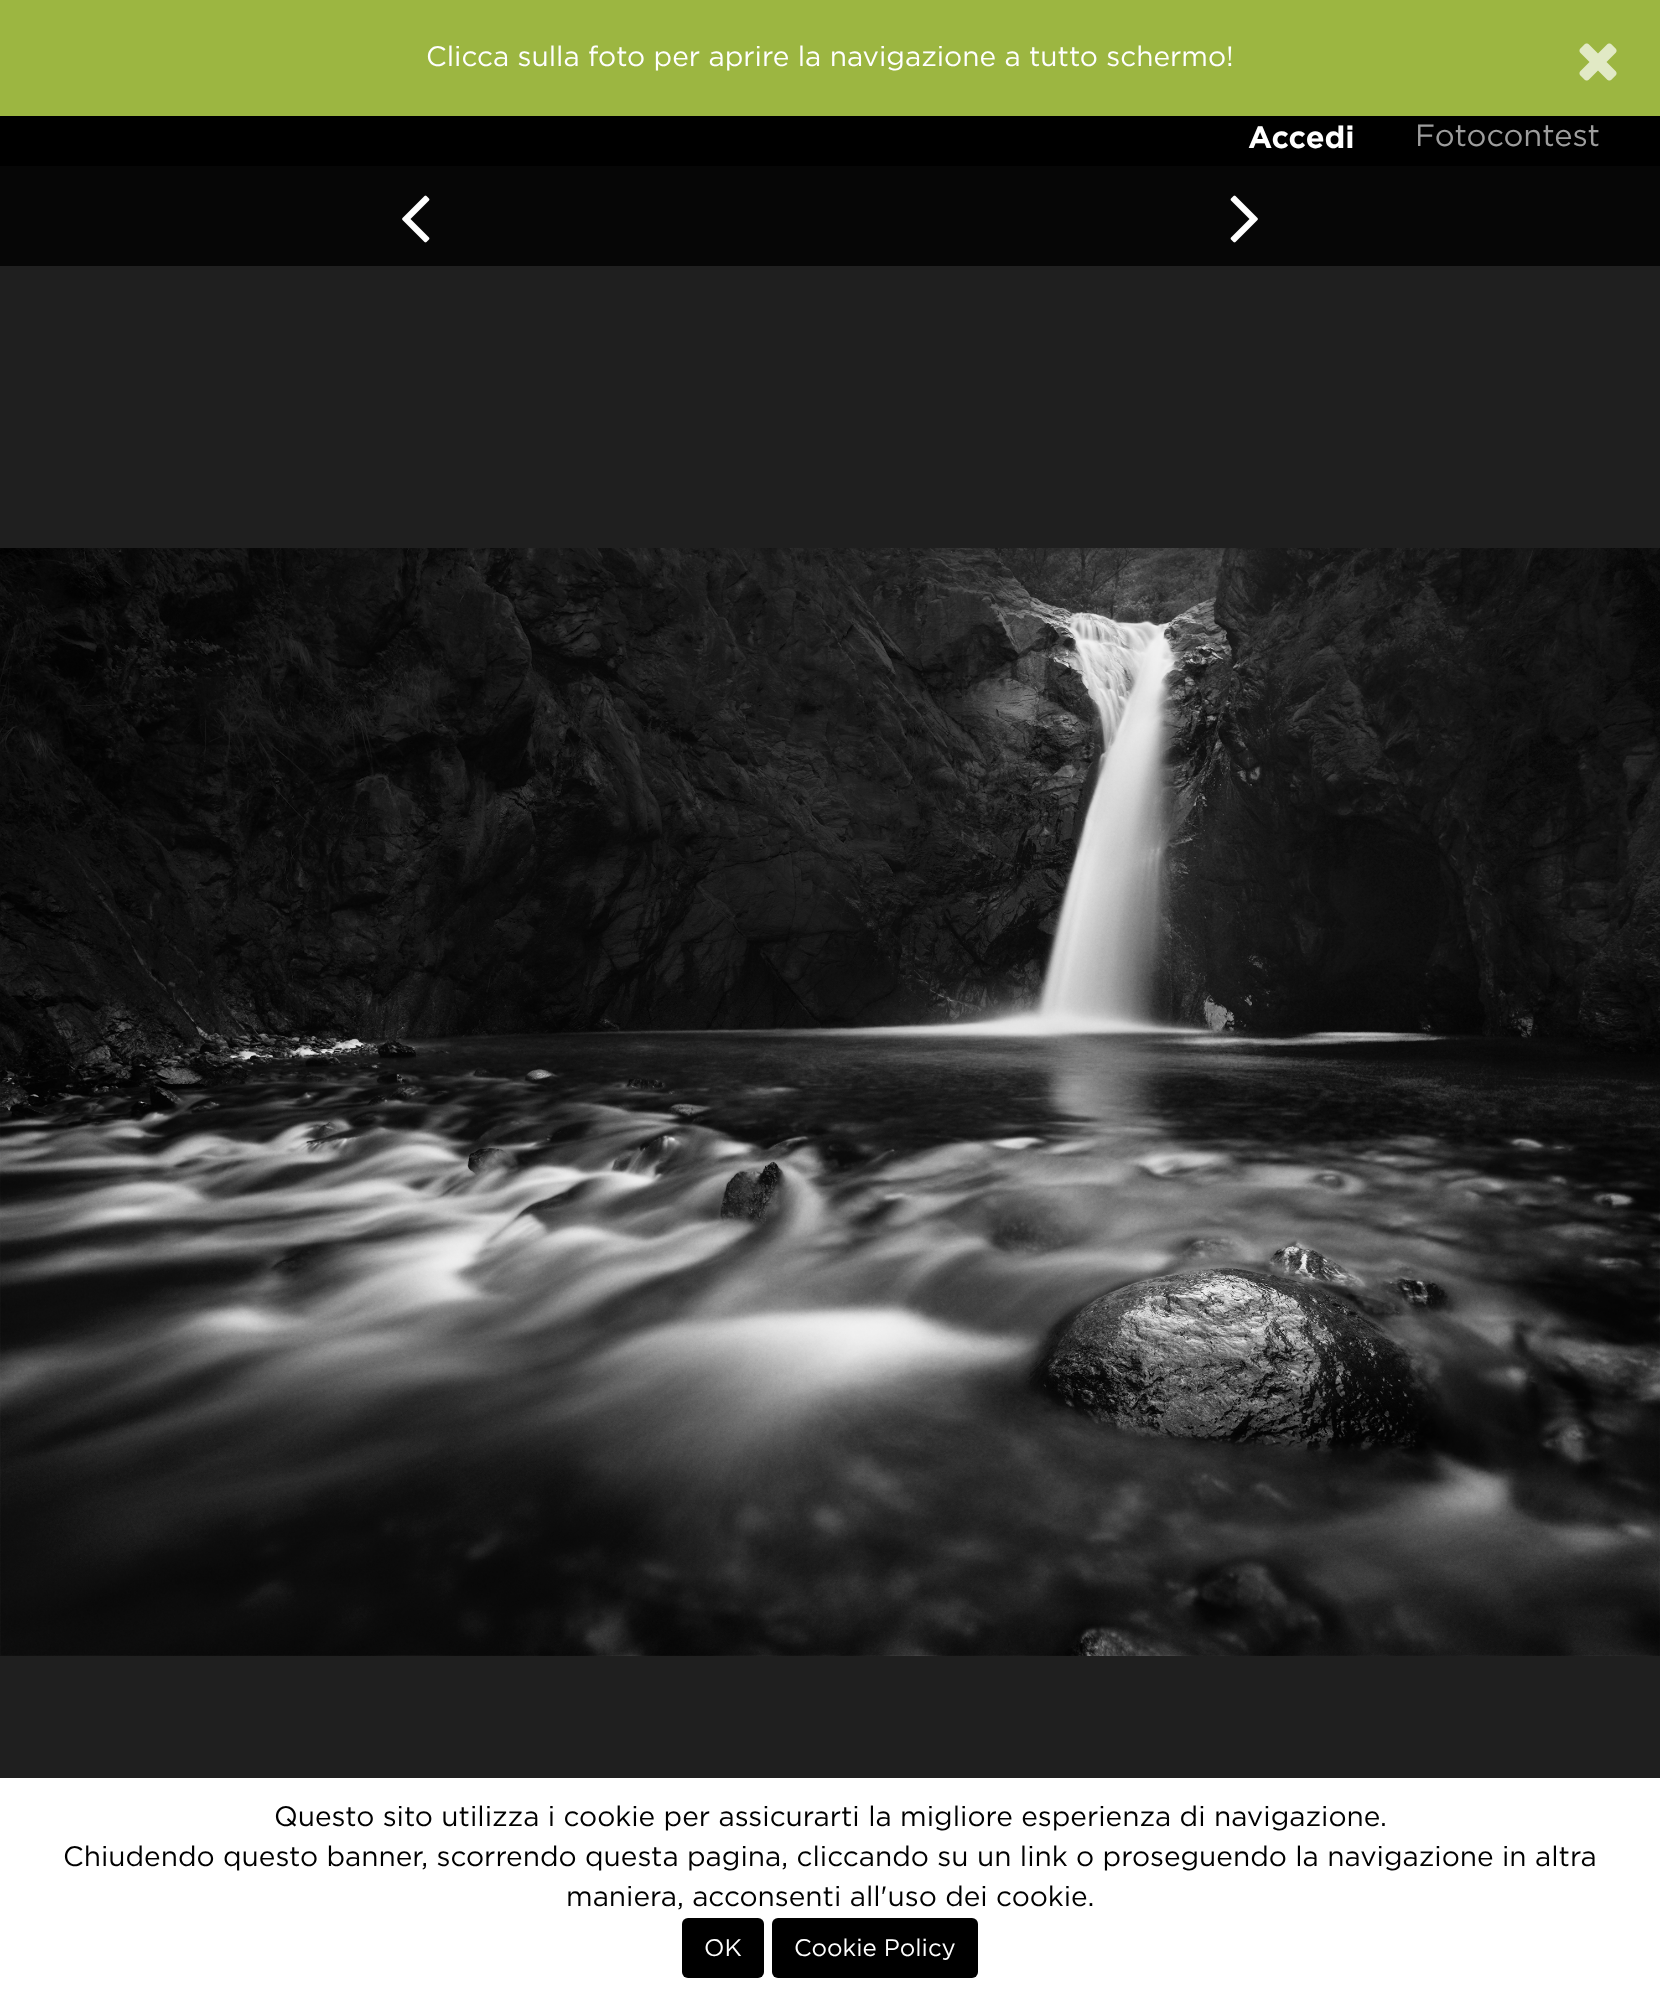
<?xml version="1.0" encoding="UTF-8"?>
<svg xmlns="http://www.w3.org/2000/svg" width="1660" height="1998">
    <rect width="100%" height="100%" fill="#1F1F1F"/>
    <rect x="0" y="0" width="1660" height="116" fill="#9CB641"/>
    <text x="426" y="66" font-family="Gotham" font-size="28" fill="#FFFFFF">Clicca sulla foto per aprire la navigazione a tutto schermo!</text>
    <image x="1579" y="43" width="38" height="38" href="img_01.png"/>
    <rect x="0" y="166" width="1660" height="100" fill="#060606"/>
    <image x="402" y="195" width="28" height="48" href="img_02.png"/>
    <image x="1230" y="195" width="28" height="48" href="img_03.png"/>
    <image x="0" y="548" width="1660" height="1108" href="img_04.png"/>
    <rect x="0" y="116" width="1660" height="50" fill="#000000"/>
    <text x="1248" y="148" font-family="Gotham" font-size="30.75" font-weight="700" fill="#FFFFFF">Accedi</text>
    <text x="1415" y="146" font-family="Gotham" font-size="30.75" fill="#9D9D9D">Fotocontest</text>
    <rect x="0" y="1778" width="1660" height="220" fill="#FFFFFF"/>
    <text x="274" y="1826" font-family="Gotham" font-size="28" fill="#000000">Questo sito utilizza i cookie per assicurarti la migliore esperienza di navigazione.</text>
    <text x="63" y="1866" font-family="Gotham" font-size="28" fill="#000000">Chiudendo questo banner, scorrendo questa pagina, cliccando su un link o proseguendo la navigazione in altra</text>
    <text x="566" y="1906" font-family="Gotham" font-size="28" fill="#000000">maniera, acconsenti all'uso dei cookie.</text>
    <rect x="682" y="1918" width="82" height="60" rx="6" fill="#000000"/>
    <text x="704" y="1956" font-family="Gotham" font-size="24" fill="#FFFFFF">OK</text>
    <rect x="772" y="1918" width="206" height="60" rx="6" fill="#000000"/>
    <text x="794" y="1956" font-family="Gotham" font-size="24" fill="#FFFFFF">Cookie Policy</text>
</svg>
